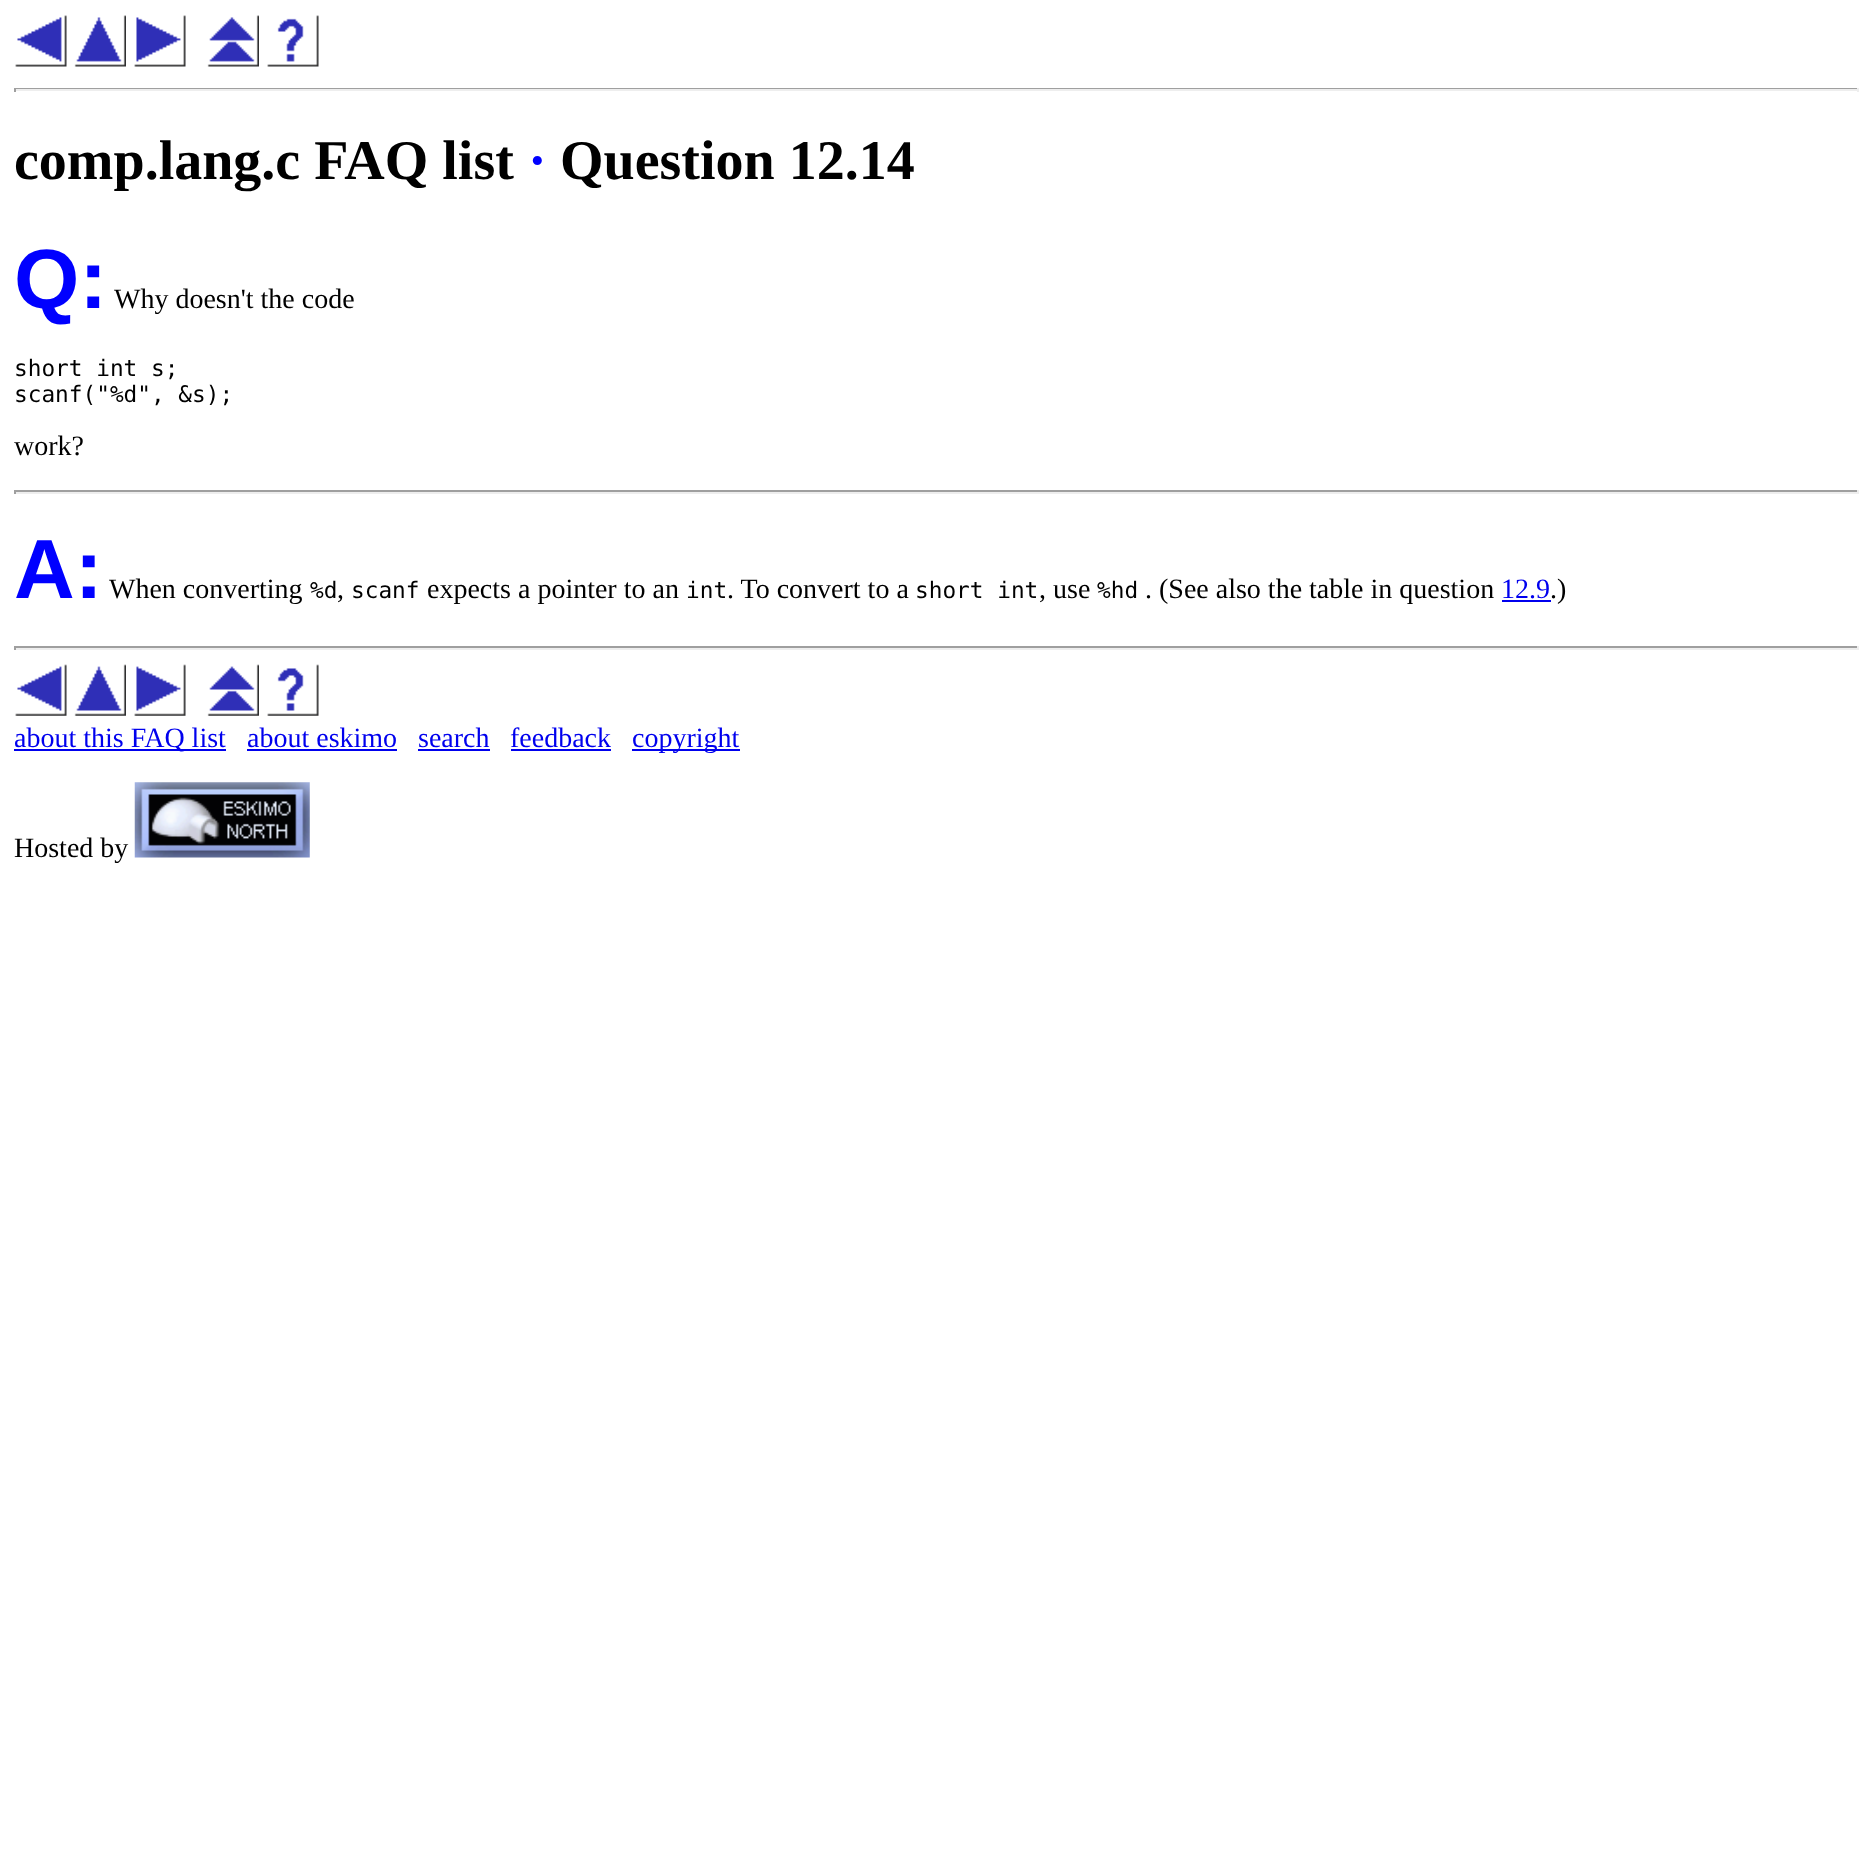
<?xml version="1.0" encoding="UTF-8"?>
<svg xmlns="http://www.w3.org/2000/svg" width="1871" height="1856">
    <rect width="100%" height="100%" fill="#FFFFFF"/>
    <image x="15" y="15" width="52" height="52" href="img_01.png"/>
    <image x="74" y="15" width="52" height="52" href="img_02.png"/>
    <image x="134" y="15" width="52" height="52" href="img_03.png"/>
    <image x="207" y="15" width="52" height="52" href="img_04.png"/>
    <image x="267" y="15" width="52" height="52" href="img_05.png"/>
    <rect x="14" y="88" width="1845" height="1" fill="#9F9F9F"/>
    <rect x="1857" y="88" width="2" height="4" fill="#EEEEEE"/>
    <rect x="14" y="89" width="1845" height="2" fill="#EEEEEE"/>
    <rect x="14" y="88" width="2" height="4" fill="#9F9F9F"/>
    <text x="14" y="179" font-family="Liberation Serif" font-size="56" font-weight="700" fill="#000000">comp.lang.c FAQ list</text>
    <text x="528" y="179" font-family="Liberation Serif" font-size="56" font-weight="700" fill="#0000FF">·</text>
    <text x="560" y="179" font-family="Liberation Serif" font-size="56" font-weight="700" fill="#000000">Question 12.14</text>
    <text x="14" y="308" font-family="Liberation Sans" font-size="84" font-weight="700" fill="#0000FF">Q:</text>
    <text x="114" y="308" font-family="Liberation Serif" font-size="28" fill="#000000">Why doesn't the code</text>
    <text font-family="DejaVu Sans Mono" font-size="22.75" fill="#000000">
        <tspan x="14" y="376">short int s;</tspan>
        <tspan x="14" y="402">scanf("%d", &amp;s);</tspan>
    </text>
    <text x="14" y="455" font-family="Liberation Serif" font-size="28" fill="#000000">work?</text>
    <rect x="14" y="490" width="1845" height="2" fill="#9F9F9F"/>
    <rect x="1857" y="490" width="2" height="4" fill="#EEEEEE"/>
    <rect x="14" y="492" width="1845" height="2" fill="#EEEEEE"/>
    <rect x="14" y="490" width="2" height="4" fill="#9F9F9F"/>
    <text x="14" y="598" font-family="Liberation Sans" font-size="84" font-weight="700" fill="#0000FF">A:</text>
    <text x="109" y="598" font-family="Liberation Serif" font-size="28" fill="#000000">When converting</text>
    <text x="310" y="598" font-family="DejaVu Sans Mono" font-size="22.75" fill="#000000">%d</text>
    <text x="337" y="598" font-family="Liberation Serif" font-size="28" fill="#000000">,</text>
    <text x="351" y="598" font-family="DejaVu Sans Mono" font-size="22.75" fill="#000000">scanf</text>
    <text x="427" y="598" font-family="Liberation Serif" font-size="28" fill="#000000">expects a pointer to an</text>
    <text x="686" y="598" font-family="DejaVu Sans Mono" font-size="22.75" fill="#000000">int</text>
    <text x="727" y="598" font-family="Liberation Serif" font-size="28" fill="#000000">. To convert to a</text>
    <text x="915" y="598" font-family="DejaVu Sans Mono" font-size="22.75" fill="#000000">short int</text>
    <text x="1039" y="598" font-family="Liberation Serif" font-size="28" fill="#000000">, use</text>
    <text x="1097" y="598" font-family="DejaVu Sans Mono" font-size="22.75" fill="#000000">%hd</text>
    <text x="1145" y="598" font-family="Liberation Serif" font-size="28" fill="#000000">. (See also the table in question</text>
    <text x="1501" y="598" font-family="Liberation Serif" font-size="28" fill="#0000EE">12.9</text>
    <rect x="1502" y="600" width="49" height="2" fill="#0000EE"/>
    <text x="1550" y="598" font-family="Liberation Serif" font-size="28" fill="#000000">.)</text>
    <rect x="14" y="646" width="1845" height="2" fill="#9F9F9F"/>
    <rect x="1857" y="646" width="2" height="4" fill="#EEEEEE"/>
    <rect x="14" y="648" width="1845" height="2" fill="#EEEEEE"/>
    <rect x="14" y="646" width="2" height="4" fill="#9F9F9F"/>
    <image x="15" y="664" width="52" height="52" href="img_06.png"/>
    <image x="74" y="664" width="52" height="52" href="img_07.png"/>
    <image x="134" y="664" width="52" height="52" href="img_08.png"/>
    <image x="207" y="664" width="52" height="52" href="img_09.png"/>
    <image x="267" y="664" width="52" height="52" href="img_10.png"/>
    <rect x="14" y="749" width="212" height="2" fill="#0000EE"/>
    <text x="14" y="747" font-family="Liberation Serif" font-size="28" fill="#0000EE">about this FAQ list</text>
    <text x="247" y="747" font-family="Liberation Serif" font-size="28" fill="#0000EE">about eskimo</text>
    <rect x="247" y="749" width="150" height="2" fill="#0000EE"/>
    <text x="418" y="747" font-family="Liberation Serif" font-size="28" fill="#0000EE">search</text>
    <rect x="418" y="749" width="72" height="2" fill="#0000EE"/>
    <text x="510" y="747" font-family="Liberation Serif" font-size="28" fill="#0000EE">feedback</text>
    <rect x="511" y="749" width="100" height="2" fill="#0000EE"/>
    <rect x="632" y="749" width="108" height="2" fill="#0000EE"/>
    <text x="632" y="747" font-family="Liberation Serif" font-size="28" fill="#0000EE">copyright</text>
    <text x="14" y="857" font-family="Liberation Serif" font-size="28" fill="#000000">Hosted by</text>
    <image x="134" y="782" width="176" height="76" href="img_11.png"/>
</svg>
